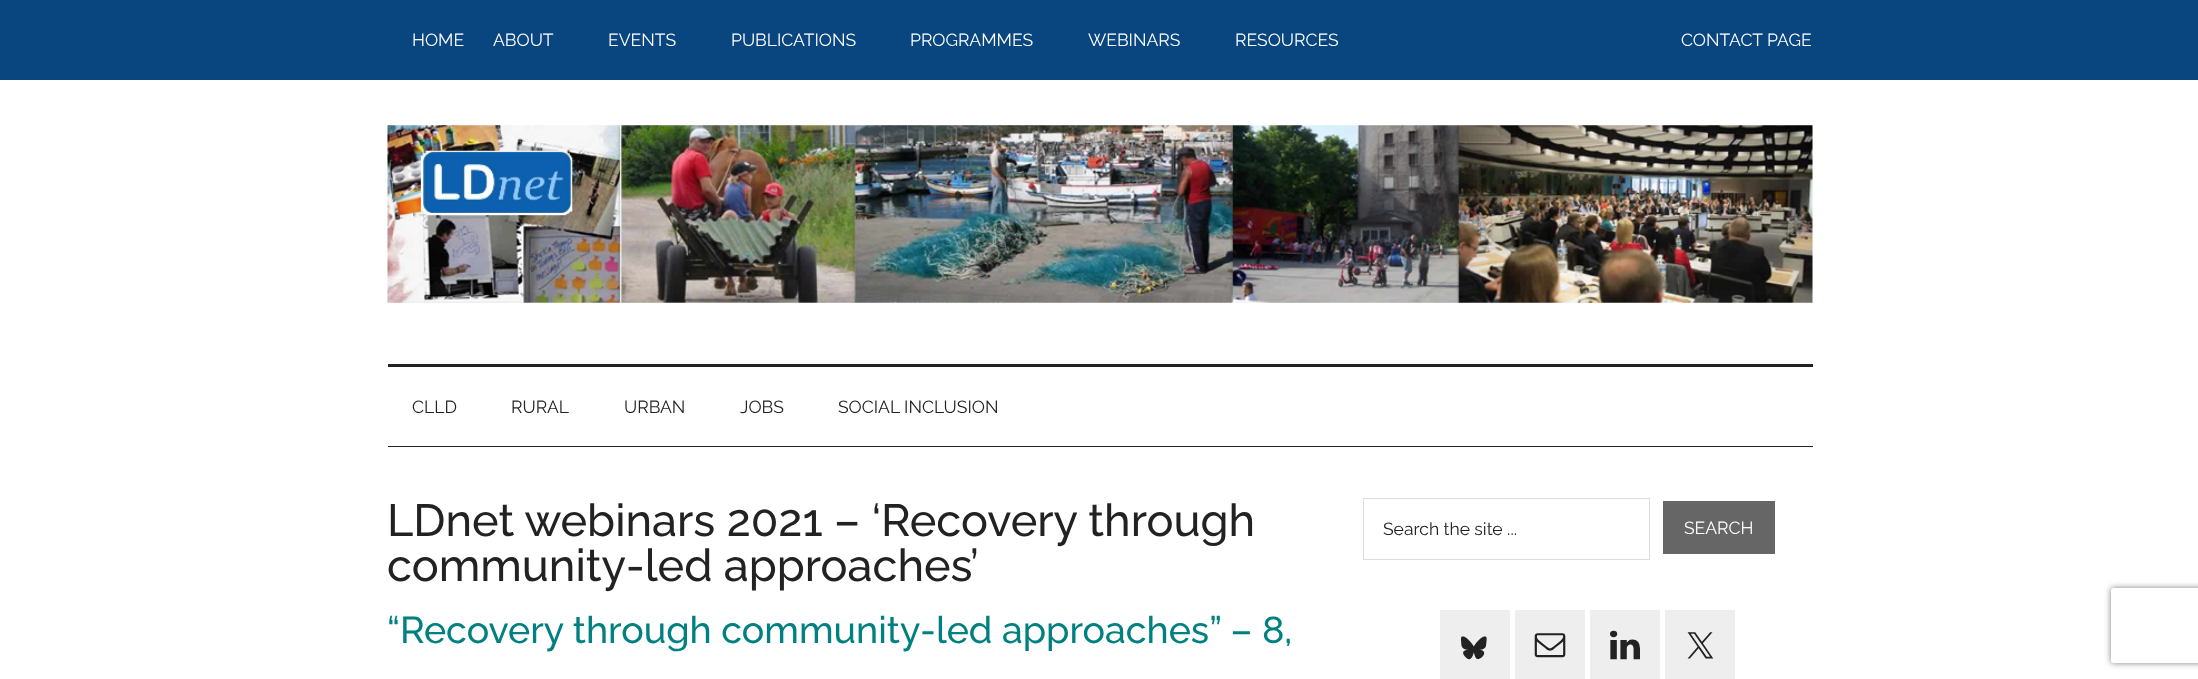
<?xml version="1.0" encoding="UTF-8"?>
<svg xmlns="http://www.w3.org/2000/svg" width="2198" height="679">
    <defs>
        <clipPath id="clip1"><path d="M 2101 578 H 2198 V 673 H 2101 Z M 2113.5 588 H 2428.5 C 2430 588 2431 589 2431 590.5 V 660.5 C 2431 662 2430 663 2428.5 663 H 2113.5 C 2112 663 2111 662 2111 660.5 V 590.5 C 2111 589 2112 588 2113.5 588 Z" clip-rule="evenodd"/></clipPath>
        <filter id="blur1" x="-50%" y="-200%" width="200%" height="500%"><feGaussianBlur stdDeviation="3"/></filter>
    </defs>
    <rect width="100%" height="100%" fill="#FFFFFF"/>
    <rect x="0" y="0" width="2198" height="80" fill="#09457F"/>
    <text x="412" y="46" font-family="Raleway" font-size="17.5" fill="#FFFFFF">HOME</text>
    <text x="493" y="46" font-family="Raleway" font-size="17.5" fill="#FFFFFF">ABOUT</text>
    <text x="608" y="46" font-family="Raleway" font-size="17.5" fill="#FFFFFF">EVENTS</text>
    <text x="731" y="46" font-family="Raleway" font-size="17.5" fill="#FFFFFF">PUBLICATIONS</text>
    <text x="910" y="46" font-family="Raleway" font-size="17.5" fill="#FFFFFF">PROGRAMMES</text>
    <text x="1088" y="46" font-family="Raleway" font-size="17.5" fill="#FFFFFF">WEBINARS</text>
    <text x="1235" y="46" font-family="Raleway" font-size="17.5" fill="#FFFFFF">RESOURCES</text>
    <text x="1681" y="46" font-family="Raleway" font-size="17.5" fill="#FFFFFF">CONTACT PAGE</text>
    <rect x="388" y="364" width="1425" height="3" fill="#222222"/>
    <image x="387" y="125" width="1426" height="178" href="img_01.png"/>
    <rect x="388" y="446" width="1425" height="1" fill="#222222"/>
    <text x="412" y="413" font-family="Raleway" font-size="17.5" fill="#222222">CLLD</text>
    <text x="511" y="413" font-family="Raleway" font-size="17.5" fill="#222222">RURAL</text>
    <text x="624" y="413" font-family="Raleway" font-size="17.5" fill="#222222">URBAN</text>
    <text x="740" y="413" font-family="Raleway" font-size="17.5" fill="#222222">JOBS</text>
    <text x="838" y="413" font-family="Raleway" font-size="17.5" fill="#222222">SOCIAL INCLUSION</text>
    <text font-family="Raleway" font-size="45" font-weight="500" fill="#222222">
        <tspan x="387" y="536">LDnet webinars 2021 – ‘Recovery through</tspan>
        <tspan x="387" y="581">community-led approaches’</tspan>
    </text>
    <text x="387" y="643" font-family="Raleway" font-size="37.5" font-weight="500" fill="#008080">“Recovery through community-led approaches” – 8,</text>
    <rect x="1363.5" y="498.5" width="286" height="61" fill="none" stroke="#DDDDDD"/>
    <text x="1383" y="535" font-family="Raleway" font-size="17.5" fill="#222222">Search the site ...</text>
    <rect x="1663" y="501" width="112" height="53" fill="#666666"/>
    <text x="1684" y="534" font-family="Raleway" font-size="17.5" fill="#FFFFFF">SEARCH</text>
    <rect x="1440" y="610" width="70" height="69" fill="#EEEEEE"/>
    <image x="1461" y="636" width="26" height="24" href="img_02.png"/>
    <rect x="1515" y="610" width="70" height="69" fill="#EEEEEE"/>
    <image x="1534" y="633" width="32" height="25" href="img_03.png"/>
    <rect x="1590" y="610" width="70" height="69" fill="#EEEEEE"/>
    <image x="1610" y="630" width="30" height="30" href="img_04.png"/>
    <rect x="1665" y="610" width="70" height="69" fill="#EEEEEE"/>
    <image x="1687" y="632" width="27" height="27" href="img_05.png"/>
    <g clip-path="url(#clip1)">
        <rect x="2111" y="588" width="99" height="75" rx="2.5" fill="#808080" filter="url(#blur1)"/>
    </g>
</svg>
